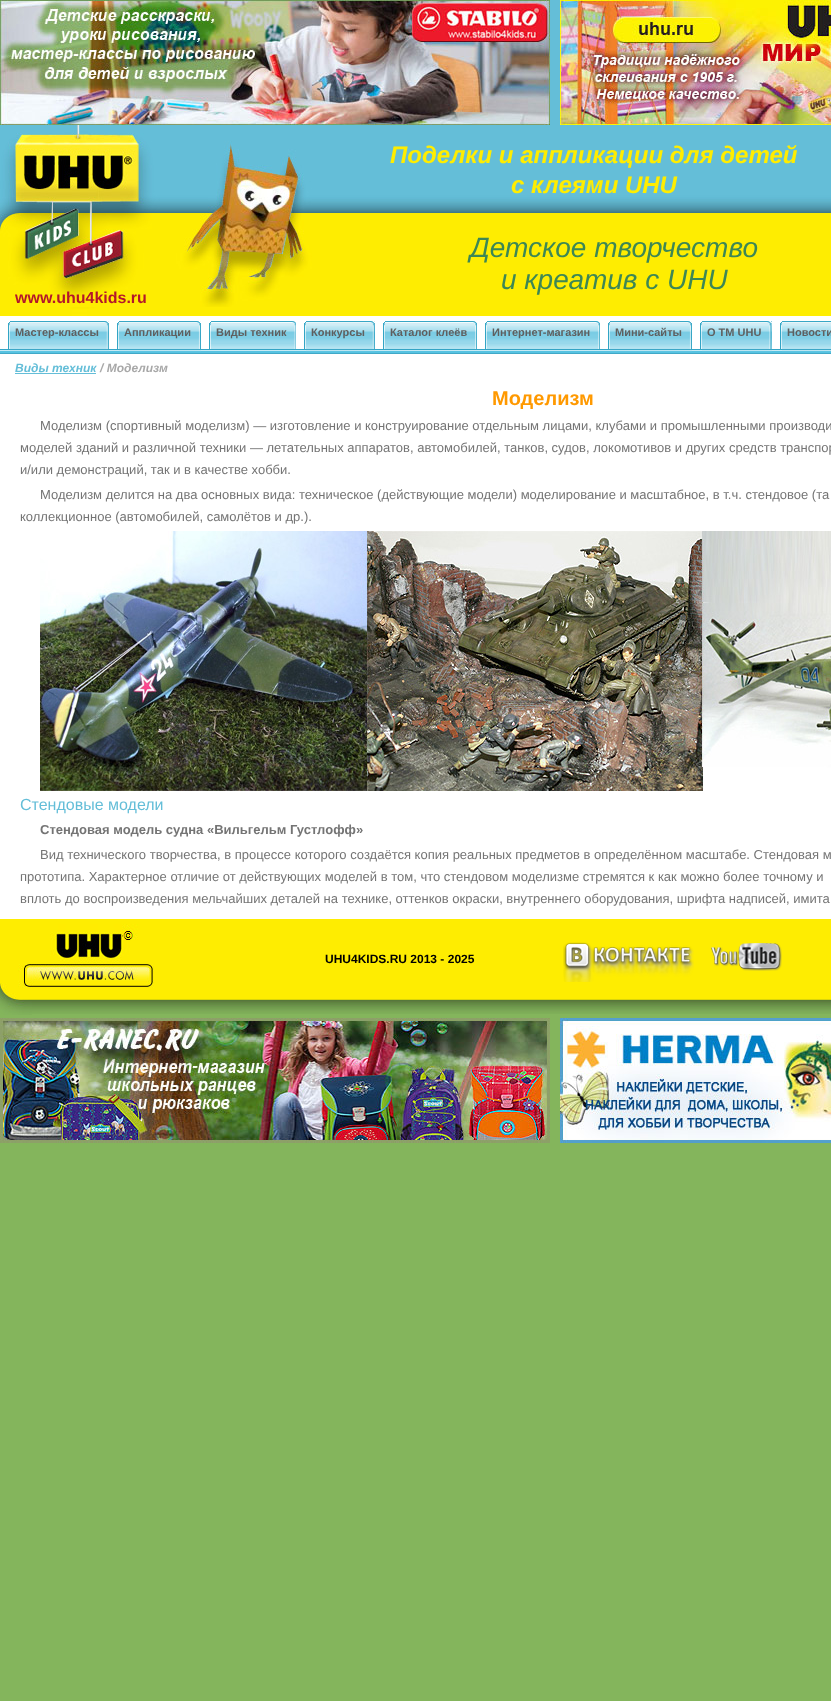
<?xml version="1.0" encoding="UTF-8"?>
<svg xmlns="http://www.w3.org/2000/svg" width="831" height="1701">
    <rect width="100%" height="100%" fill="#84B55C"/>
    <rect x="550" y="0" width="10" height="125" fill="#64BED8"/>
    <image x="0" y="0" width="550" height="125" href="img_01.png"/>
    <image x="560" y="0" width="271" height="125" href="img_02.png"/>
    <image x="0" y="307" width="831" height="9" href="img_03.png"/>
    <image x="0" y="125" width="831" height="182" href="img_04.png"/>
    <text x="390" y="163" font-family="Liberation Sans" font-size="24" font-weight="700" font-style="italic" fill="#FFED00">Поделки и аппликации для детей</text>
    <text x="511" y="193" font-family="Liberation Sans" font-size="24" font-weight="700" font-style="italic" fill="#FFED00">с клеями UHU</text>
    <text x="470" y="257" font-family="Liberation Sans" font-size="28" font-style="italic" fill="#3D8755">Детское творчество</text>
    <text x="501" y="289" font-family="Liberation Sans" font-size="28" font-style="italic" fill="#3D8755">и креатив с UHU</text>
    <text x="15" y="303" font-family="Liberation Sans" font-size="16" font-weight="700" fill="#B4162B">www.uhu4kids.ru</text>
    <rect x="0" y="316" width="831" height="603" fill="#FFFFFF"/>
    <image x="0" y="349" width="831" height="5" href="img_05.png"/>
    <image x="8" y="322" width="2" height="27" href="img_06.png"/>
    <image x="10" y="321" width="99" height="31" href="img_07.png"/>
    <text x="15" y="336" font-family="Liberation Sans" font-size="11" font-weight="700" fill="#5F5F5F">Мастер-классы</text>
    <image x="117" y="322" width="2" height="27" href="img_06.png"/>
    <image x="119" y="321" width="82" height="31" href="img_08.png"/>
    <text x="124" y="336" font-family="Liberation Sans" font-size="11" font-weight="700" fill="#5F5F5F">Аппликации</text>
    <image x="209" y="322" width="2" height="27" href="img_06.png"/>
    <image x="211" y="321" width="85" height="28" href="img_09.png"/>
    <text x="216" y="336" font-family="Liberation Sans" font-size="11" font-weight="700" fill="#5F5F5F">Виды техник</text>
    <image x="304" y="322" width="2" height="27" href="img_06.png"/>
    <image x="306" y="321" width="69" height="31" href="img_10.png"/>
    <text x="311" y="336" font-family="Liberation Sans" font-size="11" font-weight="700" fill="#5F5F5F">Конкурсы</text>
    <image x="383" y="322" width="2" height="27" href="img_06.png"/>
    <image x="385" y="321" width="92" height="28" href="img_11.png"/>
    <text x="390" y="336" font-family="Liberation Sans" font-size="11" font-weight="700" fill="#5F5F5F">Каталог клеёв</text>
    <image x="485" y="322" width="2" height="27" href="img_06.png"/>
    <image x="487" y="321" width="113" height="28" href="img_12.png"/>
    <text x="492" y="336" font-family="Liberation Sans" font-size="11" font-weight="700" fill="#5F5F5F">Интернет-магазин</text>
    <image x="608" y="322" width="2" height="27" href="img_06.png"/>
    <image x="610" y="321" width="82" height="31" href="img_08.png"/>
    <text x="615" y="336" font-family="Liberation Sans" font-size="11" font-weight="700" fill="#5F5F5F">Мини-сайты</text>
    <image x="700" y="322" width="2" height="27" href="img_06.png"/>
    <image x="702" y="321" width="70" height="31" href="img_13.png"/>
    <text x="707" y="336" font-family="Liberation Sans" font-size="11" font-weight="700" fill="#5F5F5F">О ТМ UHU</text>
    <image x="780" y="322" width="2" height="27" href="img_06.png"/>
    <image x="782" y="321" width="49" height="31" href="img_14.png"/>
    <text x="787" y="336" font-family="Liberation Sans" font-size="11" font-weight="700" fill="#5F5F5F">Новости</text>
    <text x="15" y="372" font-family="Liberation Sans" font-size="12" font-weight="700" font-style="italic" fill="#64BED8">Виды техник</text>
    <rect x="15" y="373" width="81" height="1" fill="#64BED8"/>
    <text x="100" y="372" font-family="Liberation Sans" font-size="12" font-weight="700" font-style="italic" fill="#A8A8A8">/ Моделизм</text>
    <text x="492" y="405" font-family="Liberation Sans" font-size="20" font-weight="700" fill="#FF9900">Моделизм</text>
    <text x="40" y="430" font-family="Liberation Sans" font-size="13" fill="#747474">Моделизм (спортивный моделизм) — изготовление и конструирование отдельным лицами, клубами и промышленными производи</text>
    <text font-family="Liberation Sans" font-size="13" fill="#747474">
        <tspan x="20" y="452">моделей зданий и различной техники — летательных аппаратов, автомобилей, танков, судов, локомотивов и других средств транспор</tspan>
        <tspan x="20" y="474">и/или демонстраций, так и в качестве хобби.</tspan>
    </text>
    <text x="40" y="499" font-family="Liberation Sans" font-size="13" fill="#747474">Моделизм делится на два основных вида: техническое (действующие модели) моделирование и масштабное, в т.ч. стендовое (та</text>
    <text x="20" y="521" font-family="Liberation Sans" font-size="13" fill="#747474">коллекционное (автомобилей, самолётов и др.).</text>
    <image x="40" y="531" width="791" height="260" href="img_15.png"/>
    <text x="20" y="810" font-family="Liberation Sans" font-size="16" fill="#64BED8">Стендовые модели</text>
    <text x="40" y="834" font-family="Liberation Sans" font-size="13" font-weight="700" fill="#747474">Стендовая модель судна «Вильгельм Густлофф»</text>
    <text x="40" y="859" font-family="Liberation Sans" font-size="13" fill="#747474">Вид технического творчества, в процессе которого создаётся копия реальных предметов в определённом масштабе. Стендовая м</text>
    <text font-family="Liberation Sans" font-size="13" fill="#747474">
        <tspan x="20" y="881">прототипа. Характерное отличие от действующих моделей в том, что стендовом моделизме стремятся к как можно более точному и</tspan>
        <tspan x="20" y="903">вплоть до воспроизведения мельчайших деталей на технике, оттенков окраски, внутреннего оборудования, шрифта надписей, имита</tspan>
    </text>
    <image x="0" y="919" width="831" height="95" href="img_16.png"/>
    <image x="0" y="983" width="32" height="32" href="img_17.png"/>
    <image x="10" y="924" width="144" height="69" href="img_18.png"/>
    <text x="325" y="963" font-family="Liberation Sans" font-size="12" font-weight="700" fill="#000000">UHU4KIDS.RU 2013 - 2025</text>
    <image x="563" y="942" width="131" height="40" href="img_19.png"/>
    <image x="711" y="943" width="71" height="28" href="img_20.png"/>
    <image x="0" y="1018" width="550" height="125" href="img_21.png"/>
    <image x="560" y="1018" width="271" height="125" href="img_22.png"/>
</svg>
